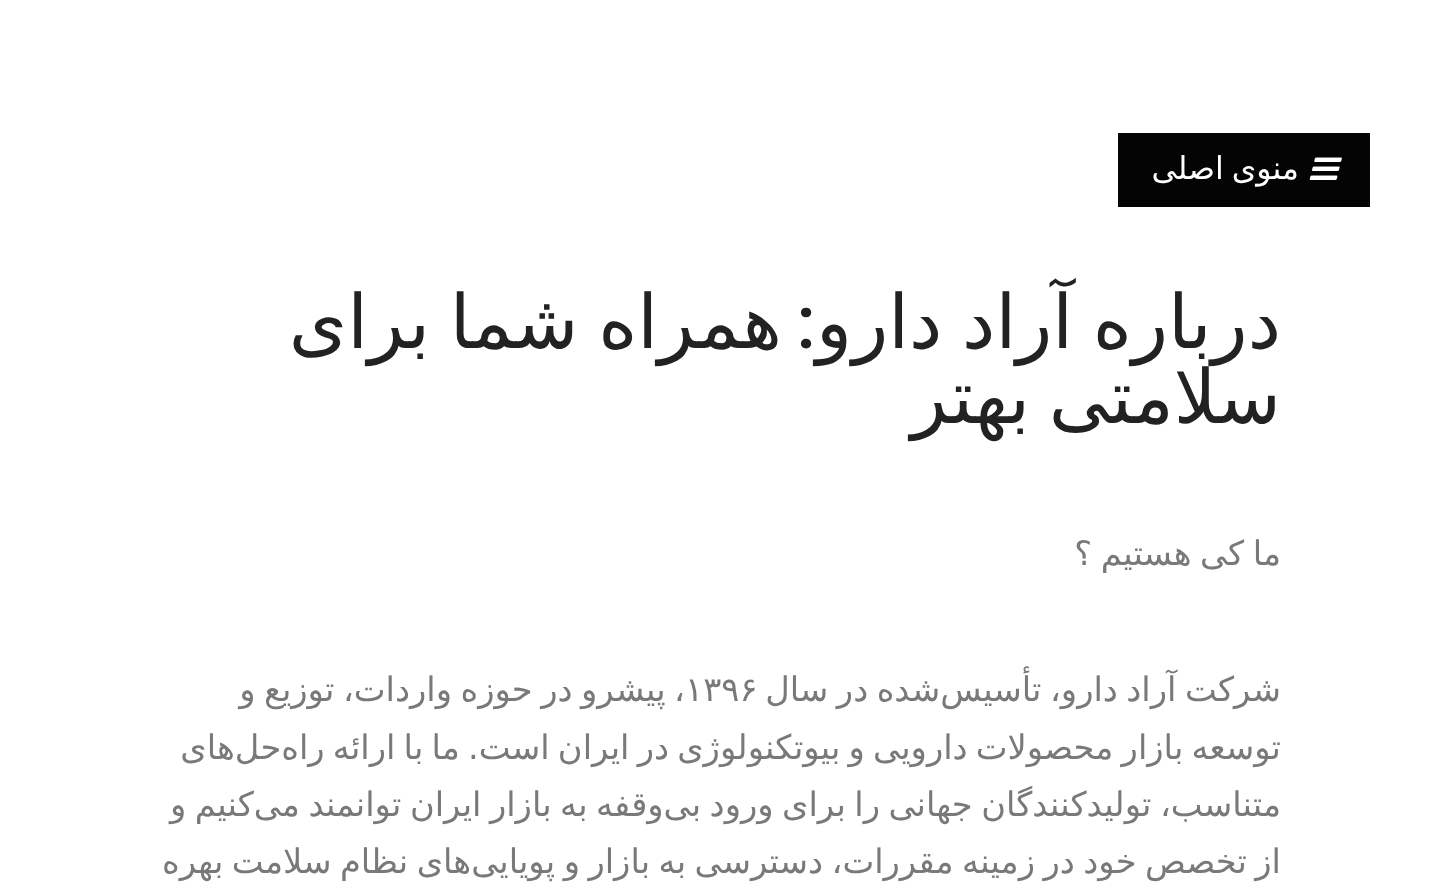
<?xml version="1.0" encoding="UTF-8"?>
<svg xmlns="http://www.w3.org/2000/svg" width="1436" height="890">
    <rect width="100%" height="100%" fill="#FFFFFF"/>
    <rect x="1118" y="133" width="252" height="74" fill="#040404"/>
    <image x="1309" y="157" width="33" height="23" href="img_01.png"/>
    <text x="1299" y="179" word-spacing="-2" font-family="DejaVu Sans" font-size="31.5" direction="rtl" fill="#FFFFFF">منوی اصلی</text>
    <text x="1281" y="348" word-spacing="-4" font-family="DejaVu Sans" font-size="74.75" direction="rtl" fill="#222222">درباره آراد دارو</text>
    <text x="816" y="348" font-family="Roboto" font-size="74.75" font-weight="500" direction="rtl" fill="#222222">:</text>
    <text x="782" y="348" word-spacing="-4" font-family="DejaVu Sans" font-size="74.75" direction="rtl" fill="#222222">همراه شما برای</text>
    <text x="1281" y="423" word-spacing="-5" font-family="DejaVu Sans" font-size="74.75" direction="rtl" fill="#222222">سلامتی بهتر</text>
    <text x="1281" y="565" word-spacing="-2.25" font-family="DejaVu Sans" font-size="33.75" direction="rtl" fill="#797978">ما کی هستیم ؟</text>
    <text x="1281" y="701" word-spacing="-2.25" font-family="DejaVu Sans" font-size="33.75" direction="rtl" fill="#797978">شرکت آراد دارو، تأسیس‌شده در سال</text>
    <text x="685" y="701" font-family="DejaVu Sans" font-size="33.75" fill="#797978">۱۳۹۶</text>
    <text x="685" y="701" word-spacing="-2.25" font-family="DejaVu Sans" font-size="33.75" direction="rtl" fill="#797978">، پیشرو در حوزه واردات، توزیع و</text>
    <text font-family="DejaVu Sans" font-size="33.75" direction="rtl" fill="#797978">
        <tspan x="1281" y="759" word-spacing="-2.5">توسعه بازار محصولات دارویی و بیوتکنولوژی در ایران است. ما با ارائه راه‌حل‌های</tspan>
        <tspan x="1281" y="816" word-spacing="-2.25">متناسب، تولیدکنندگان جهانی را برای ورود بی‌وقفه به بازار ایران توانمند می‌کنیم و</tspan>
        <tspan x="1281" y="873" word-spacing="-2.25">از تخصص خود در زمینه مقررات، دسترسی به بازار و پویایی‌های نظام سلامت بهره</tspan>
    </text>
</svg>
